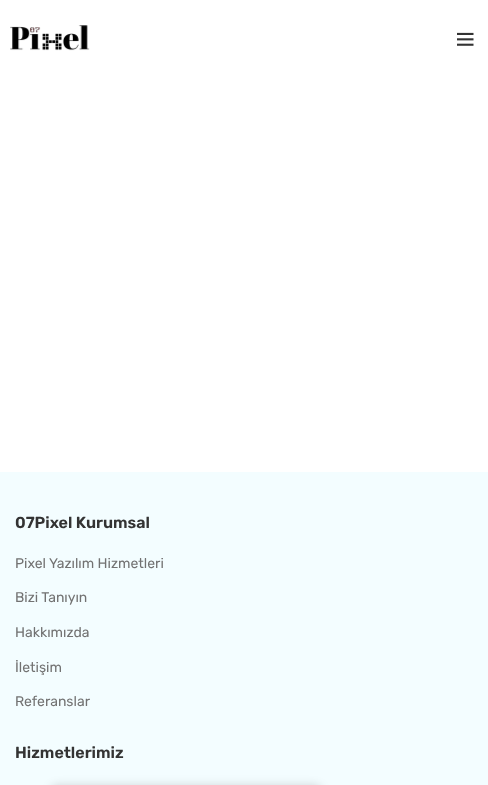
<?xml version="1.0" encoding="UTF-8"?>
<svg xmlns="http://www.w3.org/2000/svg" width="488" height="785">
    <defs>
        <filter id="blur1" x="-50%" y="-200%" width="200%" height="500%"><feGaussianBlur stdDeviation="5"/></filter>
    </defs>
    <rect width="100%" height="100%" fill="#FFFFFF"/>
    <image x="10" y="25" width="80" height="26" href="img_01.png"/>
    <image x="457" y="32" width="17" height="14" href="img_02.png"/>
    <rect x="0" y="472" width="488" height="313" fill="#F3FDFF"/>
    <text x="15" y="528" font-family="Rubik" font-size="16" font-weight="600" fill="#333333">07Pixel Kurumsal</text>
    <text x="15" y="568" font-family="Rubik" font-size="14" fill="#727272">Pixel Yazılım Hizmetleri</text>
    <text x="15" y="602" font-family="Rubik" font-size="14" fill="#727272">Bizi Tanıyın</text>
    <text x="15" y="637" font-family="Rubik" font-size="14" fill="#727272">Hakkımızda</text>
    <text x="15" y="672" font-family="Rubik" font-size="14" fill="#727272">İletişim</text>
    <text x="15" y="706" font-family="Rubik" font-size="14" fill="#727272">Referanslar</text>
    <text x="15" y="758" font-family="Rubik" font-size="16" font-weight="600" fill="#333333">Hizmetlerimiz</text>
    <rect x="50" y="785" width="272" height="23" rx="8" fill="#000000" fill-opacity="0.15" filter="url(#blur1)"/>
</svg>
